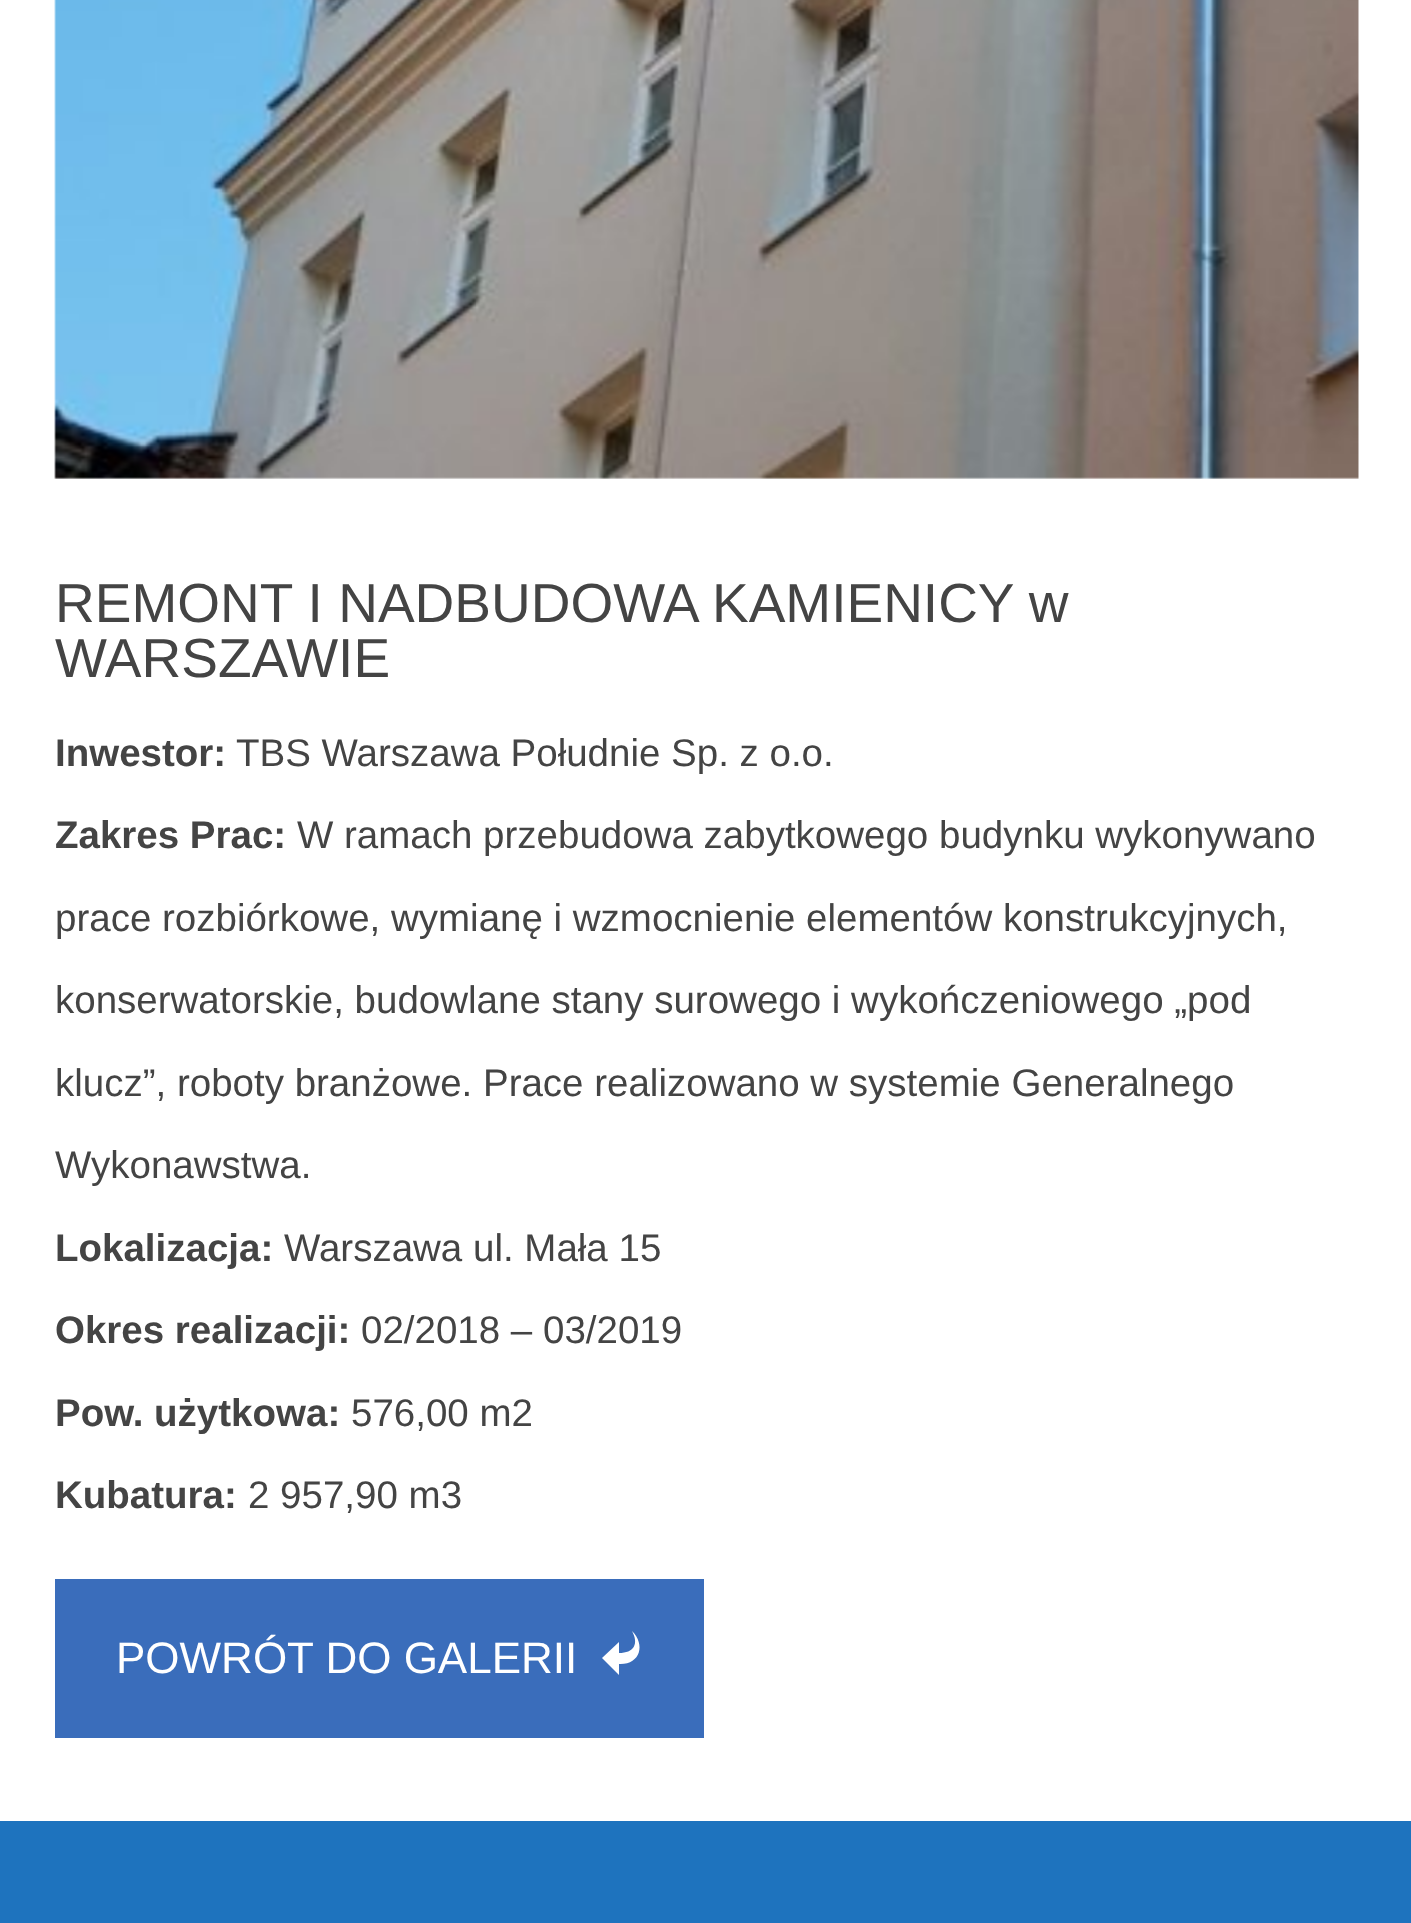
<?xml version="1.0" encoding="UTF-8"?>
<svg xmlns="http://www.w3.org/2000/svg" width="1411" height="1923">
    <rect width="100%" height="100%" fill="#FFFFFF"/>
    <image x="54" y="0" width="1305" height="479" href="img_01.png"/>
    <text font-family="Liberation Sans" font-size="55" fill="#444444">
        <tspan x="55" y="622">REMONT I NADBUDOWA KAMIENICY w</tspan>
        <tspan x="55" y="677">WARSZAWIE</tspan>
    </text>
    <text x="55" y="766" font-family="Liberation Sans" font-size="38.5" font-weight="700" fill="#444444">Inwestor:</text>
    <text x="236" y="766" font-family="Liberation Sans" font-size="38.5" fill="#444444">TBS Warszawa Południe Sp. z o.o.</text>
    <text x="55" y="848" font-family="Liberation Sans" font-size="38.5" font-weight="700" fill="#444444">Zakres Prac:</text>
    <text x="297" y="848" font-family="Liberation Sans" font-size="38.5" fill="#444444">W ramach przebudowa zabytkowego budynku wykonywano</text>
    <text x="55" y="931" font-family="Liberation Sans" font-size="38.5" fill="#444444">prace rozbiórkowe, wymianę i wzmocnienie elementów konstrukcyjnych,</text>
    <text x="55" y="1013" font-family="Liberation Sans" font-size="38.5" fill="#444444">konserwatorskie, budowlane stany surowego i wykończeniowego „pod</text>
    <text x="55" y="1096" font-family="Liberation Sans" font-size="38.5" fill="#444444">klucz”, roboty branżowe. Prace realizowano w systemie Generalnego</text>
    <text x="55" y="1178" font-family="Liberation Sans" font-size="38.5" fill="#444444">Wykonawstwa.</text>
    <text x="55" y="1261" font-family="Liberation Sans" font-size="38.5" font-weight="700" fill="#444444">Lokalizacja:</text>
    <text x="284" y="1261" font-family="Liberation Sans" font-size="38.5" fill="#444444">Warszawa ul. Mała 15</text>
    <text x="55" y="1343" font-family="Liberation Sans" font-size="38.5" font-weight="700" fill="#444444">Okres realizacji:</text>
    <text x="361" y="1343" font-family="Liberation Sans" font-size="38.5" fill="#444444">02/2018 – 03/2019</text>
    <text x="55" y="1426" font-family="Liberation Sans" font-size="38.5" font-weight="700" fill="#444444">Pow. użytkowa:</text>
    <text x="351" y="1426" font-family="Liberation Sans" font-size="38.5" fill="#444444">576,00 m2</text>
    <text x="55" y="1508" font-family="Liberation Sans" font-size="38.5" font-weight="700" fill="#444444">Kubatura:</text>
    <text x="248" y="1508" font-family="Liberation Sans" font-size="38.5" fill="#444444">2 957,90 m3</text>
    <rect x="55" y="1579" width="649" height="159" fill="#3A6DBB"/>
    <text x="116" y="1673" font-family="Liberation Sans" font-size="44" fill="#FFFFFF">POWRÓT DO GALERII</text>
    <path d="M 619 1664 V 1675 L 602 1658 L 619 1642 V 1653 C 634 1653 639 1644 632 1631 C 646 1645 640 1665 619 1664 Z" fill="#FFFFFF"/>
    <rect x="0" y="1821" width="1411" height="102" fill="#1E73BE"/>
</svg>
